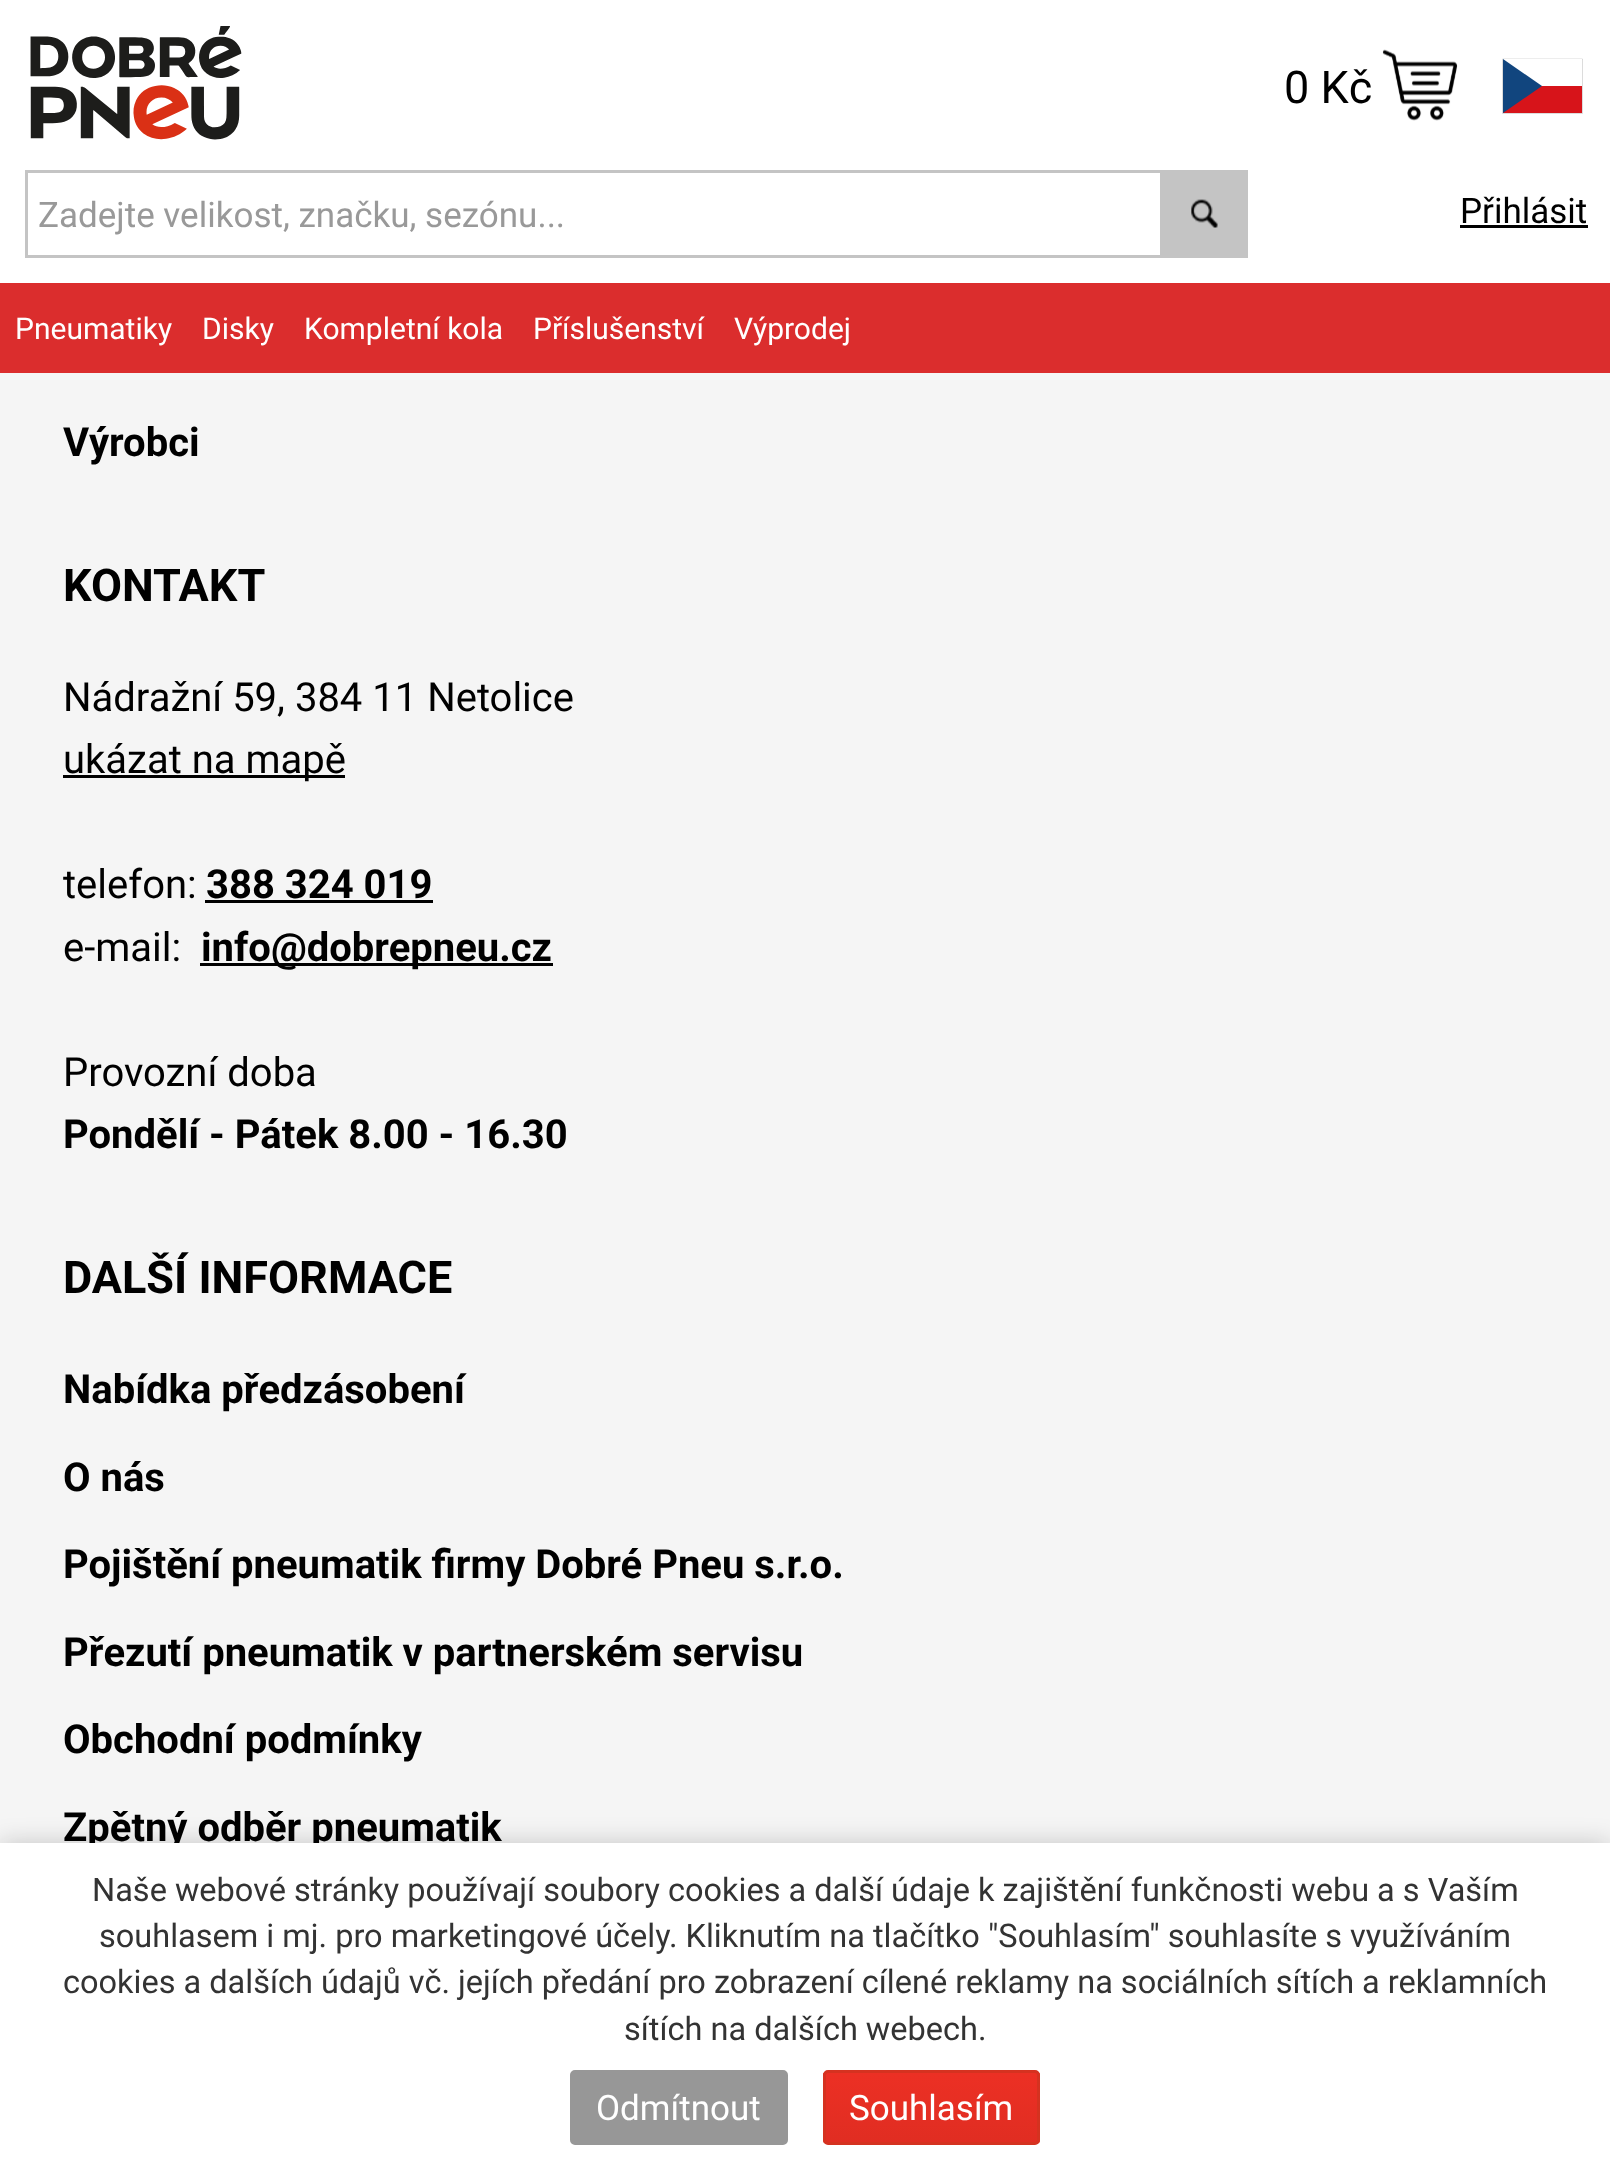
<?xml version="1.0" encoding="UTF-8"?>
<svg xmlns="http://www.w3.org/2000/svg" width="1610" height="2170">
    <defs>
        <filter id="blur1" x="-50%" y="-200%" width="200%" height="500%"><feGaussianBlur stdDeviation="12.5"/></filter>
        <clipPath id="clip1"><rect x="823" y="2070" width="217" height="75" rx="5"/></clipPath>
        <linearGradient id="g1" gradientUnits="userSpaceOnUse" x1="931" y1="2073" x2="931" y2="2143"><stop offset="0" stop-color="#EC3024"/><stop offset="1" stop-color="#E02D22"/></linearGradient>
    </defs>
    <rect width="100%" height="100%" fill="#F5F5F5"/>
    <rect x="0" y="0" width="1610" height="283" fill="#FFFFFF"/>
    <image x="30" y="26" width="212" height="114" href="img_01.png"/>
    <text x="1284" y="103" font-family="Roboto" font-size="45" fill="#000000">0 Kč</text>
    <image x="1382" y="49" width="76" height="72" href="img_02.png"/>
    <path d="M 1502.5 59 H 1582.5 V 113.5 H 1502.5 Z" fill="none" stroke="#C4C4C4" stroke-width="0.6"/>
    <rect x="1503" y="59" width="79" height="1" fill="#FFFFFF"/>
    <rect x="1503" y="86" width="79" height="27" fill="#D7141A"/>
    <path d="M 1542 86 L 1503 59 V 113 Z" fill="#11457E"/>
    <text x="1460" y="223" font-family="Roboto" font-size="35" fill="#000000">Přihlásit</text>
    <rect x="1460" y="225" width="128" height="3" fill="#000000"/>
    <rect x="26.5" y="171.5" width="1135" height="85" fill="none" stroke="#C4C4C4" stroke-width="3"/>
    <text x="38" y="227" font-family="Roboto" font-size="35" fill="#999999">Zadejte velikost, značku, sezónu...</text>
    <rect x="1163" y="170" width="85" height="88" fill="#C4C4C4"/>
    <image x="1191" y="199" width="27" height="29" href="img_03.png"/>
    <rect x="0" y="283" width="1610" height="90" fill="#DB2D2D"/>
    <text x="15" y="339" font-family="Roboto" font-size="30" fill="#FFFFFF">Pneumatiky</text>
    <text x="202" y="339" font-family="Roboto" font-size="30" fill="#FFFFFF">Disky</text>
    <text x="304" y="339" font-family="Roboto" font-size="30" fill="#FFFFFF">Kompletní kola</text>
    <text x="533" y="339" font-family="Roboto" font-size="30" fill="#FFFFFF">Příslušenství</text>
    <text x="734" y="339" font-family="Roboto" font-size="30" fill="#FFFFFF">Výprodej</text>
    <text x="63" y="456" font-family="Roboto" font-size="40" font-weight="700" fill="#000000">Výrobci</text>
    <text x="63" y="601" font-family="Roboto" font-size="45" font-weight="700" fill="#000000">KONTAKT</text>
    <text x="63" y="711" font-family="Roboto" font-size="40" fill="#000000">Nádražní 59, 384 11 Netolice</text>
    <rect x="63" y="775" width="282" height="3" fill="#000000"/>
    <text x="63" y="773" font-family="Roboto" font-size="40" fill="#000000">ukázat na mapě</text>
    <text x="63" y="898" font-family="Roboto" font-size="40" fill="#000000">telefon:</text>
    <text x="206" y="898" font-family="Roboto" font-size="40" font-weight="700" fill="#000000">388 324 019</text>
    <rect x="205" y="900" width="228" height="3" fill="#000000"/>
    <text x="63" y="961" font-family="Roboto" font-size="40" fill="#000000">e-mail:</text>
    <rect x="200" y="963" width="353" height="3" fill="#000000"/>
    <text x="201" y="961" font-family="Roboto" font-size="40" font-weight="700" fill="#000000">info@dobrepneu.cz</text>
    <text x="63" y="1086" font-family="Roboto" font-size="40" fill="#000000">Provozní doba</text>
    <text x="63" y="1148" font-family="Roboto" font-size="40" font-weight="700" fill="#000000">Pondělí - Pátek 8.00 - 16.30</text>
    <text x="63" y="1293" font-family="Roboto" font-size="45" font-weight="700" fill="#000000">DALŠÍ INFORMACE</text>
    <text x="63" y="1403" font-family="Roboto" font-size="40" font-weight="700" fill="#000000">Nabídka předzásobení</text>
    <text x="63" y="1491" font-family="Roboto" font-size="40" font-weight="700" fill="#000000">O nás</text>
    <text x="63" y="1578" font-family="Roboto" font-size="40" font-weight="700" fill="#000000">Pojištění pneumatik firmy Dobré Pneu s.r.o.</text>
    <text x="63" y="1666" font-family="Roboto" font-size="40" font-weight="700" fill="#000000">Přezutí pneumatik v partnerském servisu</text>
    <text x="63" y="1753" font-family="Roboto" font-size="40" font-weight="700" fill="#000000">Obchodní podmínky</text>
    <text x="63" y="1841" font-family="Roboto" font-size="40" font-weight="700" fill="#000000">Zpětný odběr pneumatik</text>
    <rect x="0" y="1843" width="1610" height="327" fill="#000000" fill-opacity="0.2" filter="url(#blur1)"/>
    <rect x="0" y="1843" width="1610" height="327" fill="#FFFFFF"/>
    <text x="92" y="1901" font-family="Roboto" font-size="32.5" fill="#333333">Naše webové stránky používají soubory cookies a další údaje k zajištění funkčnosti webu a s Vaším</text>
    <text x="99" y="1947" font-family="Roboto" font-size="32.5" fill="#333333">souhlasem i mj. pro marketingové účely. Kliknutím na tlačítko "Souhlasím" souhlasíte s využíváním</text>
    <text x="63" y="1993" font-family="Roboto" font-size="32.5" fill="#333333">cookies a dalších údajů vč. jejích předání pro zobrazení cílené reklamy na sociálních sítích a reklamních</text>
    <text x="624" y="2040" font-family="Roboto" font-size="32.5" fill="#333333">sítích na dalších webech.</text>
    <rect x="571.5" y="2071.5" width="215" height="72" rx="3.5" fill="#979797" stroke="#979797" stroke-width="3"/>
    <text x="596" y="2120" font-family="Roboto" font-size="35" fill="#FFFFFF">Odmítnout</text>
    <g clip-path="url(#clip1)">
        <rect x="823" y="2073" width="217" height="70" fill="url(#g1)"/>
    </g>
    <rect x="824.5" y="2071.5" width="214" height="72" rx="3.5" fill="none" stroke="#D53220" stroke-width="3"/>
    <text x="849" y="2120" font-family="Roboto" font-size="35" fill="#FFFFFF">Souhlasím</text>
</svg>
